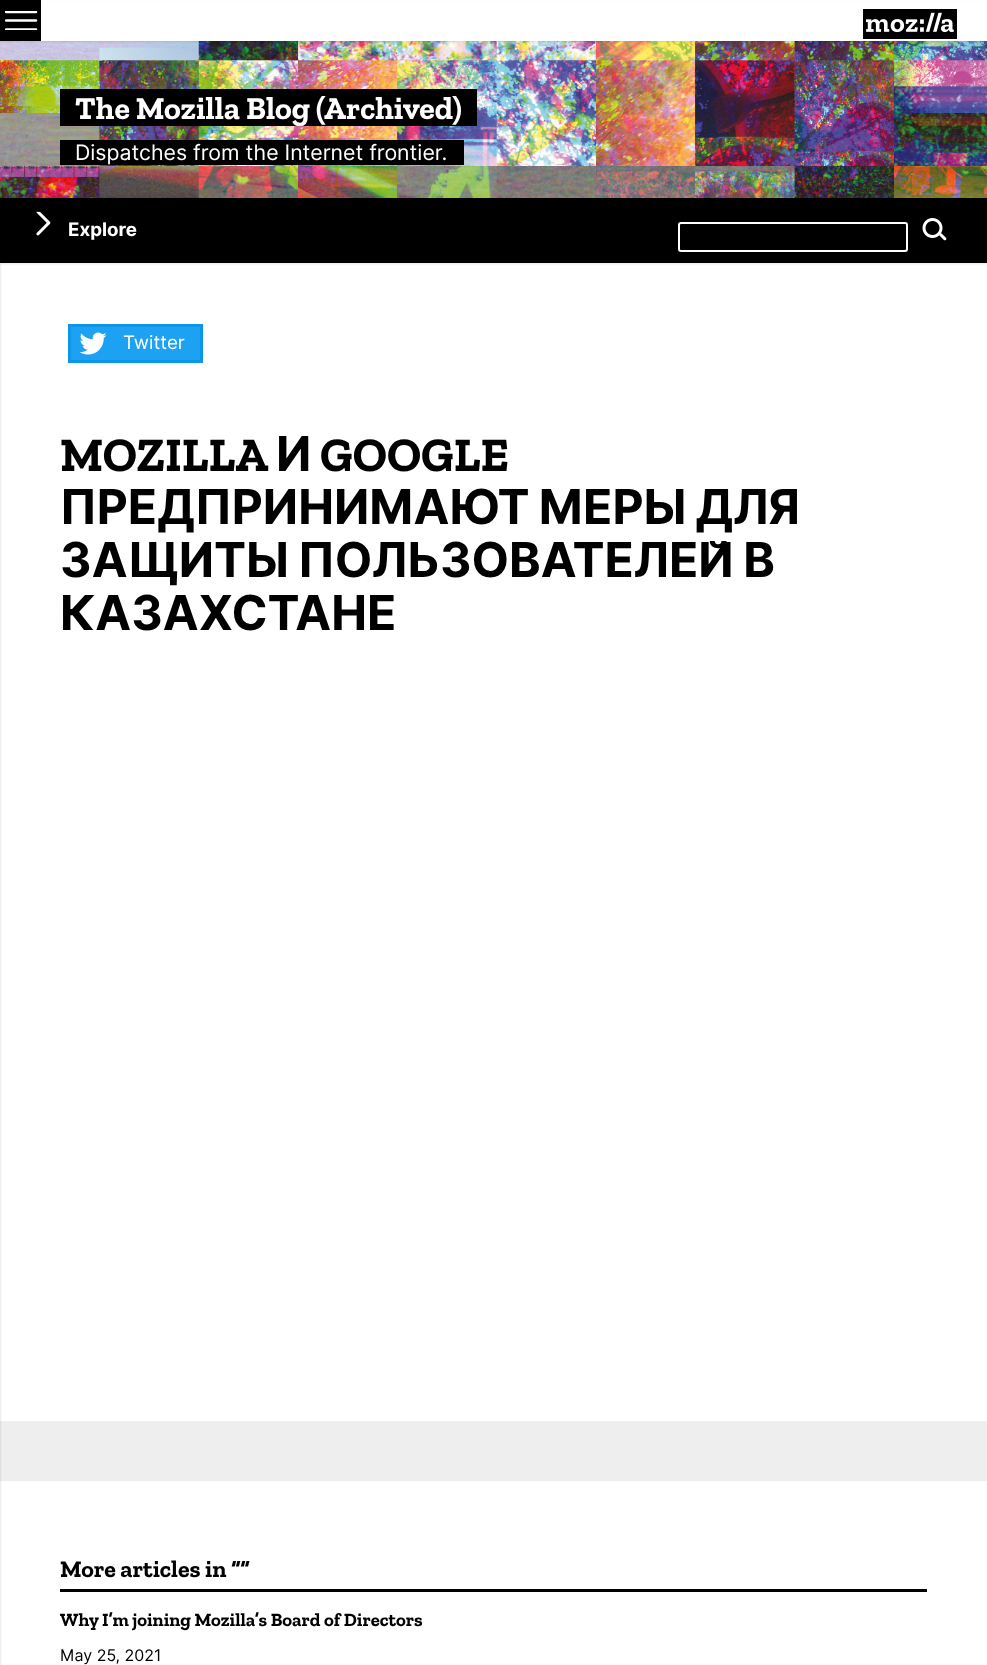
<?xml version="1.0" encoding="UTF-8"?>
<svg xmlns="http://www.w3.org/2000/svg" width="987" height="1665">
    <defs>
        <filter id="blur1" x="-50%" y="-200%" width="200%" height="500%"><feGaussianBlur stdDeviation="1"/></filter>
        <clipPath id="clip1"><rect x="5" y="11" width="33" height="19"/></clipPath>
    </defs>
    <rect width="100%" height="100%" fill="#FFFFFF"/>
    <image x="0" y="41" width="987" height="157" href="img_02.png"/>
    <rect x="0" y="2" width="987" height="40" fill="#000000" fill-opacity="0.1" filter="url(#blur1)"/>
    <rect x="41" y="1" width="946" height="40" fill="#FFFFFF"/>
    <rect x="0" y="0" width="41" height="41" fill="#000000"/>
    <g clip-path="url(#clip1)">
        <path d="M 6 12 H 36 M 6 20.5 H 36 M 6 29.5 H 36" fill="none" stroke="#FFFFFF" stroke-width="2.5" stroke-linecap="round" stroke-linejoin="round"/>
    </g>
    <image x="863" y="9" width="94" height="30" href="img_01.png"/>
    <rect x="60" y="89" width="417" height="37" fill="#000000"/>
    <text x="75" y="119" font-family="Zilla Slab" font-size="32" font-weight="700" fill="#FFFFFF">The Mozilla Blog (Archived)</text>
    <rect x="60" y="140" width="404" height="25" fill="#000000"/>
    <text x="75" y="160" font-family="Inter" font-size="21.3" fill="#FFFFFF">Dispatches from the Internet frontier.</text>
    <rect x="0" y="200" width="987" height="64" fill="#000000" fill-opacity="0.1" filter="url(#blur1)"/>
    <rect x="0" y="1421" width="987" height="60" fill="#EEEEEE"/>
    <rect x="-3" y="258" width="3" height="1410" fill="#000000" fill-opacity="0.2" filter="url(#blur1)"/>
    <rect x="0" y="198" width="987" height="65" fill="#000000"/>
    <image x="36" y="211" width="15" height="25" href="img_03.png"/>
    <text x="68" y="236" font-family="Inter" font-size="18.7" font-weight="700" fill="#FFFFFF">Explore</text>
    <rect x="679" y="223" width="228" height="28" rx="2" fill="none" stroke="#FFFFFF" stroke-width="2"/>
    <image x="922" y="218" width="25" height="23" href="img_04.png"/>
    <rect x="71" y="327" width="129" height="33" fill="#1DA1F2"/>
    <image x="80" y="332" width="27" height="23" href="img_05.png"/>
    <rect x="69.5" y="325.5" width="132" height="36" fill="none" stroke="#0D95E8" stroke-width="3"/>
    <text x="123" y="349" font-family="Inter" font-size="18.7" fill="#FFFFFF">Twitter</text>
    <text x="60" y="471" font-family="Zilla Slab" font-size="48" font-weight="700" fill="#000000">MOZILLA</text>
    <text x="276" y="471" font-family="Inter" font-size="48" font-weight="700" fill="#000000">И</text>
    <text x="320" y="471" font-family="Zilla Slab" font-size="48" font-weight="700" fill="#000000">GOOGLE</text>
    <text font-family="Inter" font-size="48" font-weight="700" fill="#000000">
        <tspan x="60" y="524" word-spacing="-2">ПРЕДПРИНИМАЮТ МЕРЫ ДЛЯ</tspan>
        <tspan x="60" y="577" word-spacing="-2">ЗАЩИТЫ ПОЛЬЗОВАТЕЛЕЙ В</tspan>
        <tspan x="60" y="630">КАЗАХСТАНЕ</tspan>
    </text>
    <rect x="60" y="1589" width="867" height="3" fill="#000000"/>
    <text x="60" y="1577" font-family="Zilla Slab" font-size="24" font-weight="700" fill="#000000">More articles in “”</text>
    <text x="60" y="1626" font-family="Zilla Slab" font-size="18.7" font-weight="700" fill="#000000">Why I’m joining Mozilla’s Board of Directors</text>
    <text x="60" y="1661" font-family="Inter" font-size="16" fill="#000000">May 25, 2021</text>
</svg>
